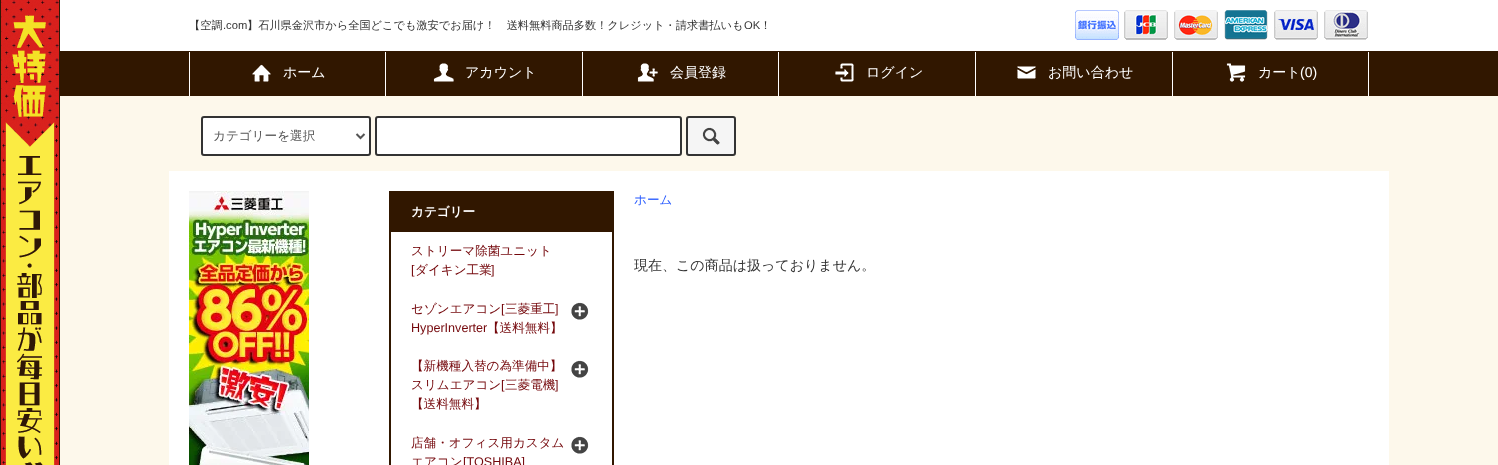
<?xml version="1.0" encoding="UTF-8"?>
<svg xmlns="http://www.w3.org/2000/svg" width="1498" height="465">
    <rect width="100%" height="100%" fill="#FDF8EB"/>
    <image x="0" y="0" width="60" height="465" href="img_01.png"/>
    <rect x="60" y="0" width="1438" height="51" fill="#FFFFFF"/>
    <rect x="60" y="51" width="1438" height="45" fill="#311700"/>
    <text x="189" y="29" font-family="WenQuanYi Zen Hei" font-size="11.2" font-weight="500" fill="#333333">【空調</text>
    <text x="223" y="29" font-family="Liberation Sans" font-size="11.2" fill="#333333">.com</text>
    <text x="247" y="29" font-family="WenQuanYi Zen Hei" font-size="11.2" font-weight="500" fill="#333333">】石川県金沢市から全国どこでも激安でお届け！　送料無料商品多数！クレジット・請求書払いも</text>
    <text x="744" y="29" font-family="Liberation Sans" font-size="11.2" fill="#333333">OK</text>
    <text x="760" y="29" font-family="WenQuanYi Zen Hei" font-size="11.2" font-weight="500" fill="#333333">！</text>
    <image x="1075" y="10" width="44" height="30" href="img_02.png"/>
    <image x="1124" y="10" width="44" height="30" href="img_03.png"/>
    <image x="1174" y="10" width="44" height="30" href="img_04.png"/>
    <image x="1224" y="10" width="44" height="30" href="img_05.png"/>
    <image x="1274" y="10" width="44" height="30" href="img_06.png"/>
    <image x="1324" y="10" width="44" height="30" href="img_07.png"/>
    <rect x="189" y="52" width="1" height="44" fill="#FFFFFF"/>
    <rect x="385" y="52" width="1" height="44" fill="#FFFFFF"/>
    <image x="252" y="64" width="19" height="18" href="img_08.png"/>
    <text x="283" y="77" font-family="WenQuanYi Zen Hei" font-size="14" font-weight="500" fill="#FFFFFF">ホーム</text>
    <rect x="582" y="52" width="1" height="44" fill="#FFFFFF"/>
    <image x="433" y="63" width="21" height="19" href="img_09.png"/>
    <text x="465" y="77" font-family="WenQuanYi Zen Hei" font-size="14" font-weight="500" fill="#FFFFFF">アカウント</text>
    <rect x="778" y="52" width="1" height="44" fill="#FFFFFF"/>
    <image x="637" y="63" width="21" height="19" href="img_10.png"/>
    <text x="670" y="77" font-family="WenQuanYi Zen Hei" font-size="14" font-weight="500" fill="#FFFFFF">会員登録</text>
    <rect x="975" y="52" width="1" height="44" fill="#FFFFFF"/>
    <image x="835" y="63" width="19" height="19" href="img_11.png"/>
    <text x="866" y="77" font-family="WenQuanYi Zen Hei" font-size="14" font-weight="500" fill="#FFFFFF">ログイン</text>
    <rect x="1172" y="52" width="1" height="44" fill="#FFFFFF"/>
    <image x="1017" y="66" width="19" height="13" href="img_12.png"/>
    <text x="1048" y="77" font-family="WenQuanYi Zen Hei" font-size="14" font-weight="500" fill="#FFFFFF">お問い合わせ</text>
    <rect x="1368" y="52" width="1" height="44" fill="#FFFFFF"/>
    <image x="1226" y="63" width="20" height="19" href="img_13.png"/>
    <text x="1258" y="77" font-family="WenQuanYi Zen Hei" font-size="14" font-weight="500" fill="#FFFFFF">カート</text>
    <text x="1300" y="77" font-family="Liberation Sans" font-size="14" fill="#FFFFFF">(0)</text>
    <rect x="202" y="117" width="168" height="38" rx="2" fill="#FFFFFF" stroke="#333333" stroke-width="2"/>
    <path d="M 356.5 134 L 360.5 138 L 364.5 134" fill="none" stroke="#555555" stroke-width="2"/>
    <text x="213" y="140" font-family="WenQuanYi Zen Hei" font-size="12.6" font-weight="500" fill="#555555">カテゴリーを選択</text>
    <rect x="376" y="117" width="305" height="38" rx="2" fill="#FFFFFF" stroke="#333333" stroke-width="2"/>
    <rect x="687" y="117" width="48" height="38" rx="2" fill="#F5F5F5" stroke="#333333" stroke-width="2"/>
    <image x="702" y="127" width="18" height="18" href="img_14.png"/>
    <rect x="169" y="171" width="1220" height="294" fill="#FFFFFF"/>
    <image x="189" y="191" width="120" height="274" href="img_15.png"/>
    <rect x="390" y="192" width="223" height="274" fill="none" stroke="#311700" stroke-width="2"/>
    <rect x="391" y="193" width="221" height="39" fill="#311700"/>
    <text x="411" y="216" font-family="WenQuanYi Zen Hei" font-size="12.6" font-weight="700" fill="#FFFFFF">カテゴリー</text>
    <text x="411" y="255" font-family="WenQuanYi Zen Hei" font-size="12.6" font-weight="500" fill="#74070B">ストリーマ除菌ユニット</text>
    <text x="411" y="274" font-family="Liberation Sans" font-size="12.6" fill="#74070B">[</text>
    <text x="415" y="274" font-family="WenQuanYi Zen Hei" font-size="12.6" font-weight="500" fill="#74070B">ダイキン工業</text>
    <text x="491" y="274" font-family="Liberation Sans" font-size="12.6" fill="#74070B">]</text>
    <text x="411" y="313" font-family="WenQuanYi Zen Hei" font-size="12.6" font-weight="500" fill="#74070B">セゾンエアコン 三菱重工</text>
    <text x="501" y="313" font-family="Liberation Sans" font-size="12.6" fill="#74070B">[</text>
    <text x="555" y="313" font-family="Liberation Sans" font-size="12.6" fill="#74070B">]</text>
    <text x="411" y="332" font-family="Liberation Sans" font-size="12.6" fill="#74070B">HyperInverter</text>
    <text x="487" y="332" font-family="WenQuanYi Zen Hei" font-size="12.6" font-weight="500" fill="#74070B">【送料無料】</text>
    <image x="571" y="302" width="18" height="18" href="img_16.png"/>
    <text font-family="WenQuanYi Zen Hei" font-size="12.6" font-weight="500" fill="#74070B">
        <tspan x="411" y="370">【新機種入替の為準備中】</tspan>
        <tspan x="411" y="389">スリムエアコン 三菱電機</tspan>
    </text>
    <text x="501" y="389" font-family="Liberation Sans" font-size="12.6" fill="#74070B">[</text>
    <text x="555" y="389" font-family="Liberation Sans" font-size="12.6" fill="#74070B">]</text>
    <text x="411" y="408" font-family="WenQuanYi Zen Hei" font-size="12.6" font-weight="500" fill="#74070B">【送料無料】</text>
    <image x="571" y="360" width="18" height="18" href="img_16.png"/>
    <text font-family="WenQuanYi Zen Hei" font-size="12.6" font-weight="500" fill="#74070B">
        <tspan x="411" y="447">店舗・オフィス用カスタム</tspan>
        <tspan x="411" y="466">エアコン</tspan>
    </text>
    <text x="463" y="466" font-family="Liberation Sans" font-size="12.6" fill="#74070B">[TOSHIBA]</text>
    <image x="571" y="436" width="18" height="18" href="img_16.png"/>
    <text x="634" y="204" font-family="WenQuanYi Zen Hei" font-size="12.6" font-weight="500" fill="#2659FF">ホーム</text>
    <text x="634" y="270" font-family="WenQuanYi Zen Hei" font-size="14" font-weight="500" fill="#333333">現在、この商品は扱っておりません。</text>
</svg>
